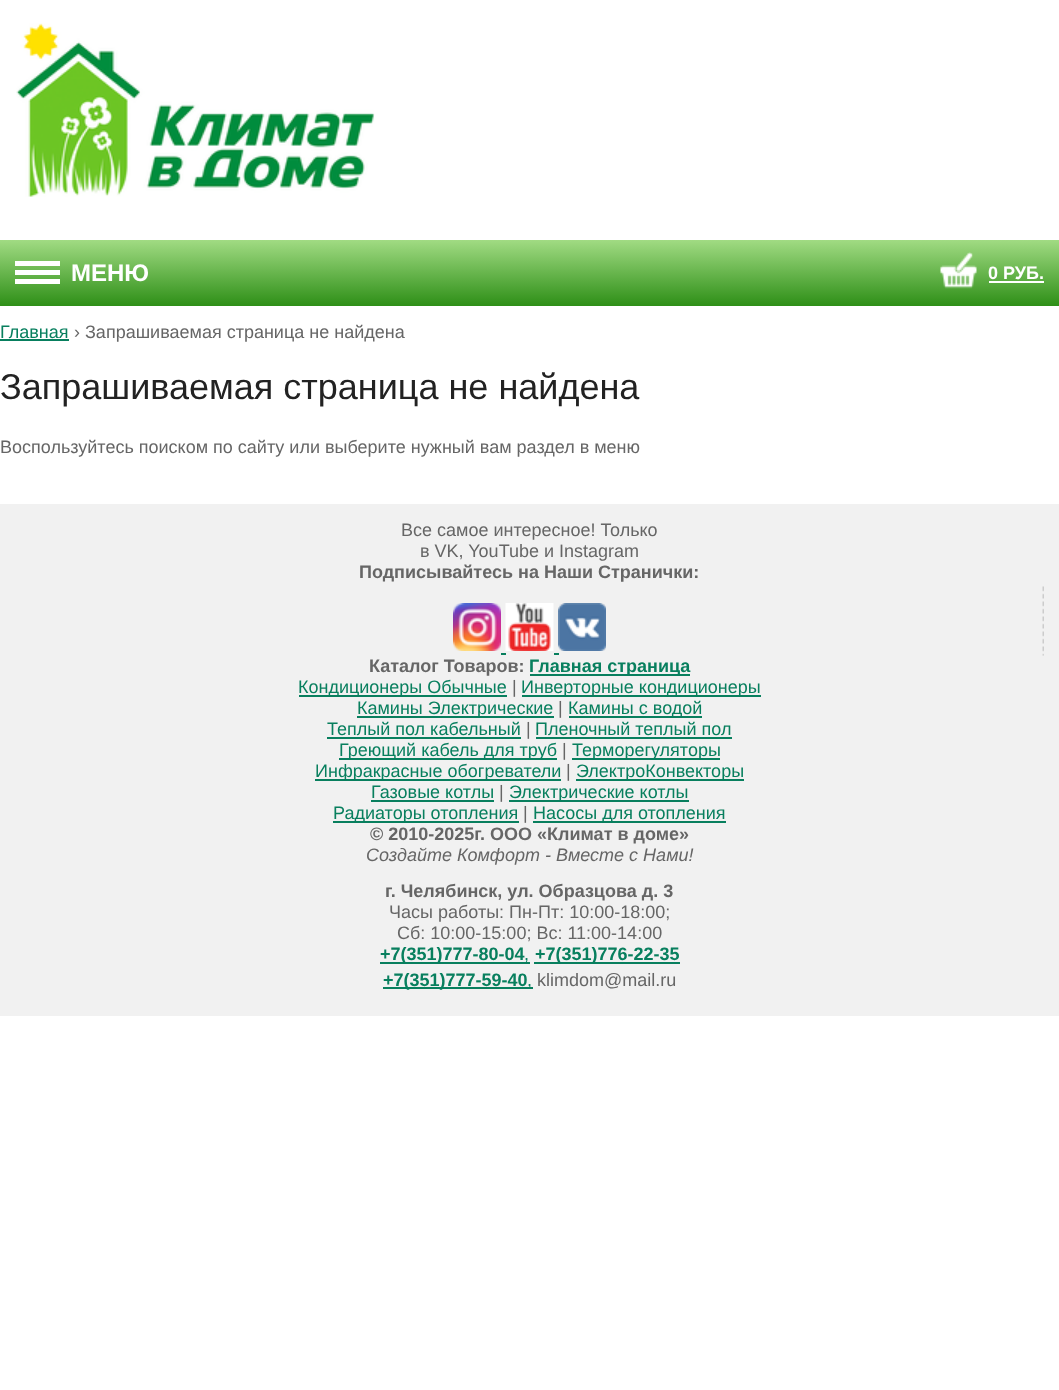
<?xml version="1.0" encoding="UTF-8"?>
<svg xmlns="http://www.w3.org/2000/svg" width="1059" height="1390">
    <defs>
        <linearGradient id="g1" gradientUnits="userSpaceOnUse" x1="530" y1="240" x2="530" y2="306"><stop offset="0" stop-color="#A1DB83"/><stop offset="1" stop-color="#2E8F17"/></linearGradient>
    </defs>
    <rect width="100%" height="100%" fill="#FFFFFF"/>
    <image x="16" y="23" width="359" height="174" href="img_01.png"/>
    <rect x="0" y="240" width="1059" height="66" fill="url(#g1)"/>
    <rect x="15" y="270" width="45" height="5" fill="#FFFFFF"/>
    <rect x="15" y="261" width="45" height="5" fill="#FFFFFF"/>
    <rect x="15" y="279" width="45" height="5" fill="#FFFFFF"/>
    <text x="71" y="281" font-family="Liberation Sans" font-size="24" font-weight="700" fill="#FFFFFF">МЕНЮ</text>
    <image x="940" y="252" width="37" height="37" href="img_02.png"/>
    <text x="988" y="279" font-family="Liberation Sans" font-size="18" font-weight="700" fill="#FFFFFF">0 РУБ.</text>
    <rect x="989" y="281" width="55" height="2" fill="#FFFFFF"/>
    <text x="0" y="338" font-family="Liberation Sans" font-size="18" fill="#087F5E">Главная</text>
    <rect x="0" y="339" width="69" height="2" fill="#087F5E"/>
    <text x="74" y="338" font-family="Liberation Sans" font-size="18" fill="#666666">› Запрашиваемая страница не найдена</text>
    <text x="0" y="399" font-family="Liberation Sans" font-size="36" fill="#222222">Запрашиваемая страница не найдена</text>
    <text x="0" y="453" font-family="Liberation Sans" font-size="18" fill="#666666">Воспользуйтесь поиском по сайту или выберите нужный вам раздел в меню</text>
    <rect x="0" y="504" width="1059" height="512" fill="#F1F1F1"/>
    <image x="1042" y="586" width="2" height="70" href="img_03.png"/>
    <text x="401" y="536" font-family="Liberation Sans" font-size="18" fill="#666666">Все самое интересное! Только</text>
    <text x="420" y="557" font-family="Liberation Sans" font-size="18" fill="#666666">в VK, YouTube и Instagram</text>
    <text x="359" y="578" font-family="Liberation Sans" font-size="18" font-weight="700" fill="#666666">Подписывайтесь на Наши Странички:</text>
    <image x="453" y="603" width="48" height="48" href="img_04.png"/>
    <image x="505" y="603" width="49" height="48" href="img_05.png"/>
    <image x="558" y="603" width="48" height="48" href="img_06.png"/>
    <rect x="501" y="653" width="5" height="2" fill="#087F5E"/>
    <rect x="554" y="653" width="5" height="2" fill="#087F5E"/>
    <text x="369" y="672" font-family="Liberation Sans" font-size="18" font-weight="700" fill="#666666">Каталог Товаров:</text>
    <rect x="530" y="674" width="160" height="2" fill="#087F5E"/>
    <text x="529" y="672" font-family="Liberation Sans" font-size="18" font-weight="700" fill="#087F5E">Главная страница</text>
    <rect x="299" y="695" width="208" height="2" fill="#087F5E"/>
    <text x="298" y="693" font-family="Liberation Sans" font-size="18" fill="#087F5E">Кондиционеры Обычные</text>
    <text x="512" y="693" font-family="Liberation Sans" font-size="18" fill="#666666">|</text>
    <rect x="522" y="695" width="239" height="2" fill="#087F5E"/>
    <text x="521" y="693" font-family="Liberation Sans" font-size="18" fill="#087F5E">Инверторные кондиционеры</text>
    <rect x="357" y="716" width="197" height="2" fill="#087F5E"/>
    <text x="357" y="714" font-family="Liberation Sans" font-size="18" fill="#087F5E">Камины Электрические</text>
    <text x="558" y="714" font-family="Liberation Sans" font-size="18" fill="#666666">|</text>
    <rect x="569" y="716" width="133" height="2" fill="#087F5E"/>
    <text x="568" y="714" font-family="Liberation Sans" font-size="18" fill="#087F5E">Камины с водой</text>
    <text x="327" y="735" font-family="Liberation Sans" font-size="18" fill="#087F5E">Теплый пол кабельный</text>
    <rect x="327" y="737" width="194" height="2" fill="#087F5E"/>
    <text x="526" y="735" font-family="Liberation Sans" font-size="18" fill="#666666">|</text>
    <text x="535" y="735" font-family="Liberation Sans" font-size="18" fill="#087F5E">Пленочный теплый пол</text>
    <rect x="536" y="737" width="196" height="2" fill="#087F5E"/>
    <rect x="339" y="758" width="218" height="2" fill="#087F5E"/>
    <text x="339" y="756" font-family="Liberation Sans" font-size="18" fill="#087F5E">Греющий кабель для труб</text>
    <text x="562" y="756" font-family="Liberation Sans" font-size="18" fill="#666666">|</text>
    <rect x="572" y="758" width="148" height="2" fill="#087F5E"/>
    <text x="572" y="756" font-family="Liberation Sans" font-size="18" fill="#087F5E">Терморегуляторы</text>
    <rect x="315" y="779" width="246" height="2" fill="#087F5E"/>
    <text x="315" y="777" font-family="Liberation Sans" font-size="18" fill="#087F5E">Инфракрасные обогреватели</text>
    <text x="566" y="777" font-family="Liberation Sans" font-size="18" fill="#666666">|</text>
    <rect x="576" y="779" width="168" height="2" fill="#087F5E"/>
    <text x="576" y="777" font-family="Liberation Sans" font-size="18" fill="#087F5E">ЭлектроКонвекторы</text>
    <text x="371" y="798" font-family="Liberation Sans" font-size="18" fill="#087F5E">Газовые котлы</text>
    <rect x="371" y="800" width="123" height="2" fill="#087F5E"/>
    <text x="499" y="798" font-family="Liberation Sans" font-size="18" fill="#666666">|</text>
    <rect x="509" y="800" width="180" height="2" fill="#087F5E"/>
    <text x="509" y="798" font-family="Liberation Sans" font-size="18" fill="#087F5E">Электрические котлы</text>
    <rect x="333" y="821" width="186" height="2" fill="#087F5E"/>
    <text x="333" y="819" font-family="Liberation Sans" font-size="18" fill="#087F5E">Радиаторы отопления</text>
    <text x="523" y="819" font-family="Liberation Sans" font-size="18" fill="#666666">|</text>
    <rect x="533" y="821" width="193" height="2" fill="#087F5E"/>
    <text x="533" y="819" font-family="Liberation Sans" font-size="18" fill="#087F5E">Насосы для отопления</text>
    <text x="370" y="840" font-family="Liberation Sans" font-size="18" font-weight="700" fill="#666666">© 2010-2025г. ООО «Климат в доме»</text>
    <text x="366" y="861" font-family="Liberation Sans" font-size="18" font-style="italic" fill="#666666">Создайте Комфорт - Вместе с Нами!</text>
    <text x="385" y="897" font-family="Liberation Sans" font-size="18" font-weight="700" fill="#666666">г. Челябинск, ул. Образцова д. 3</text>
    <text x="389" y="918" font-family="Liberation Sans" font-size="18" fill="#666666">Часы работы: Пн-Пт: 10:00-18:00;</text>
    <text x="397" y="939" font-family="Liberation Sans" font-size="18" fill="#666666">Сб: 10:00-15:00; Вс: 11:00-14:00</text>
    <rect x="380" y="962" width="150" height="2" fill="#087F5E"/>
    <text x="380" y="960" font-family="Liberation Sans" font-size="18" font-weight="700" fill="#087F5E">+7(351)777-80-04</text>
    <text x="524" y="960" font-family="Liberation Sans" font-size="18" fill="#087F5E">,</text>
    <rect x="534" y="962" width="146" height="2" fill="#087F5E"/>
    <text x="535" y="960" font-family="Liberation Sans" font-size="18" font-weight="700" fill="#087F5E">+7(351)776-22-35</text>
    <rect x="383" y="987" width="150" height="2" fill="#087F5E"/>
    <text x="383" y="986" font-family="Liberation Sans" font-size="18" font-weight="700" fill="#087F5E">+7(351)777-59-40</text>
    <text x="527" y="986" font-family="Liberation Sans" font-size="18" fill="#087F5E">,</text>
    <text x="537" y="986" font-family="Liberation Sans" font-size="18" fill="#666666">klimdom@mail.ru</text>
</svg>
